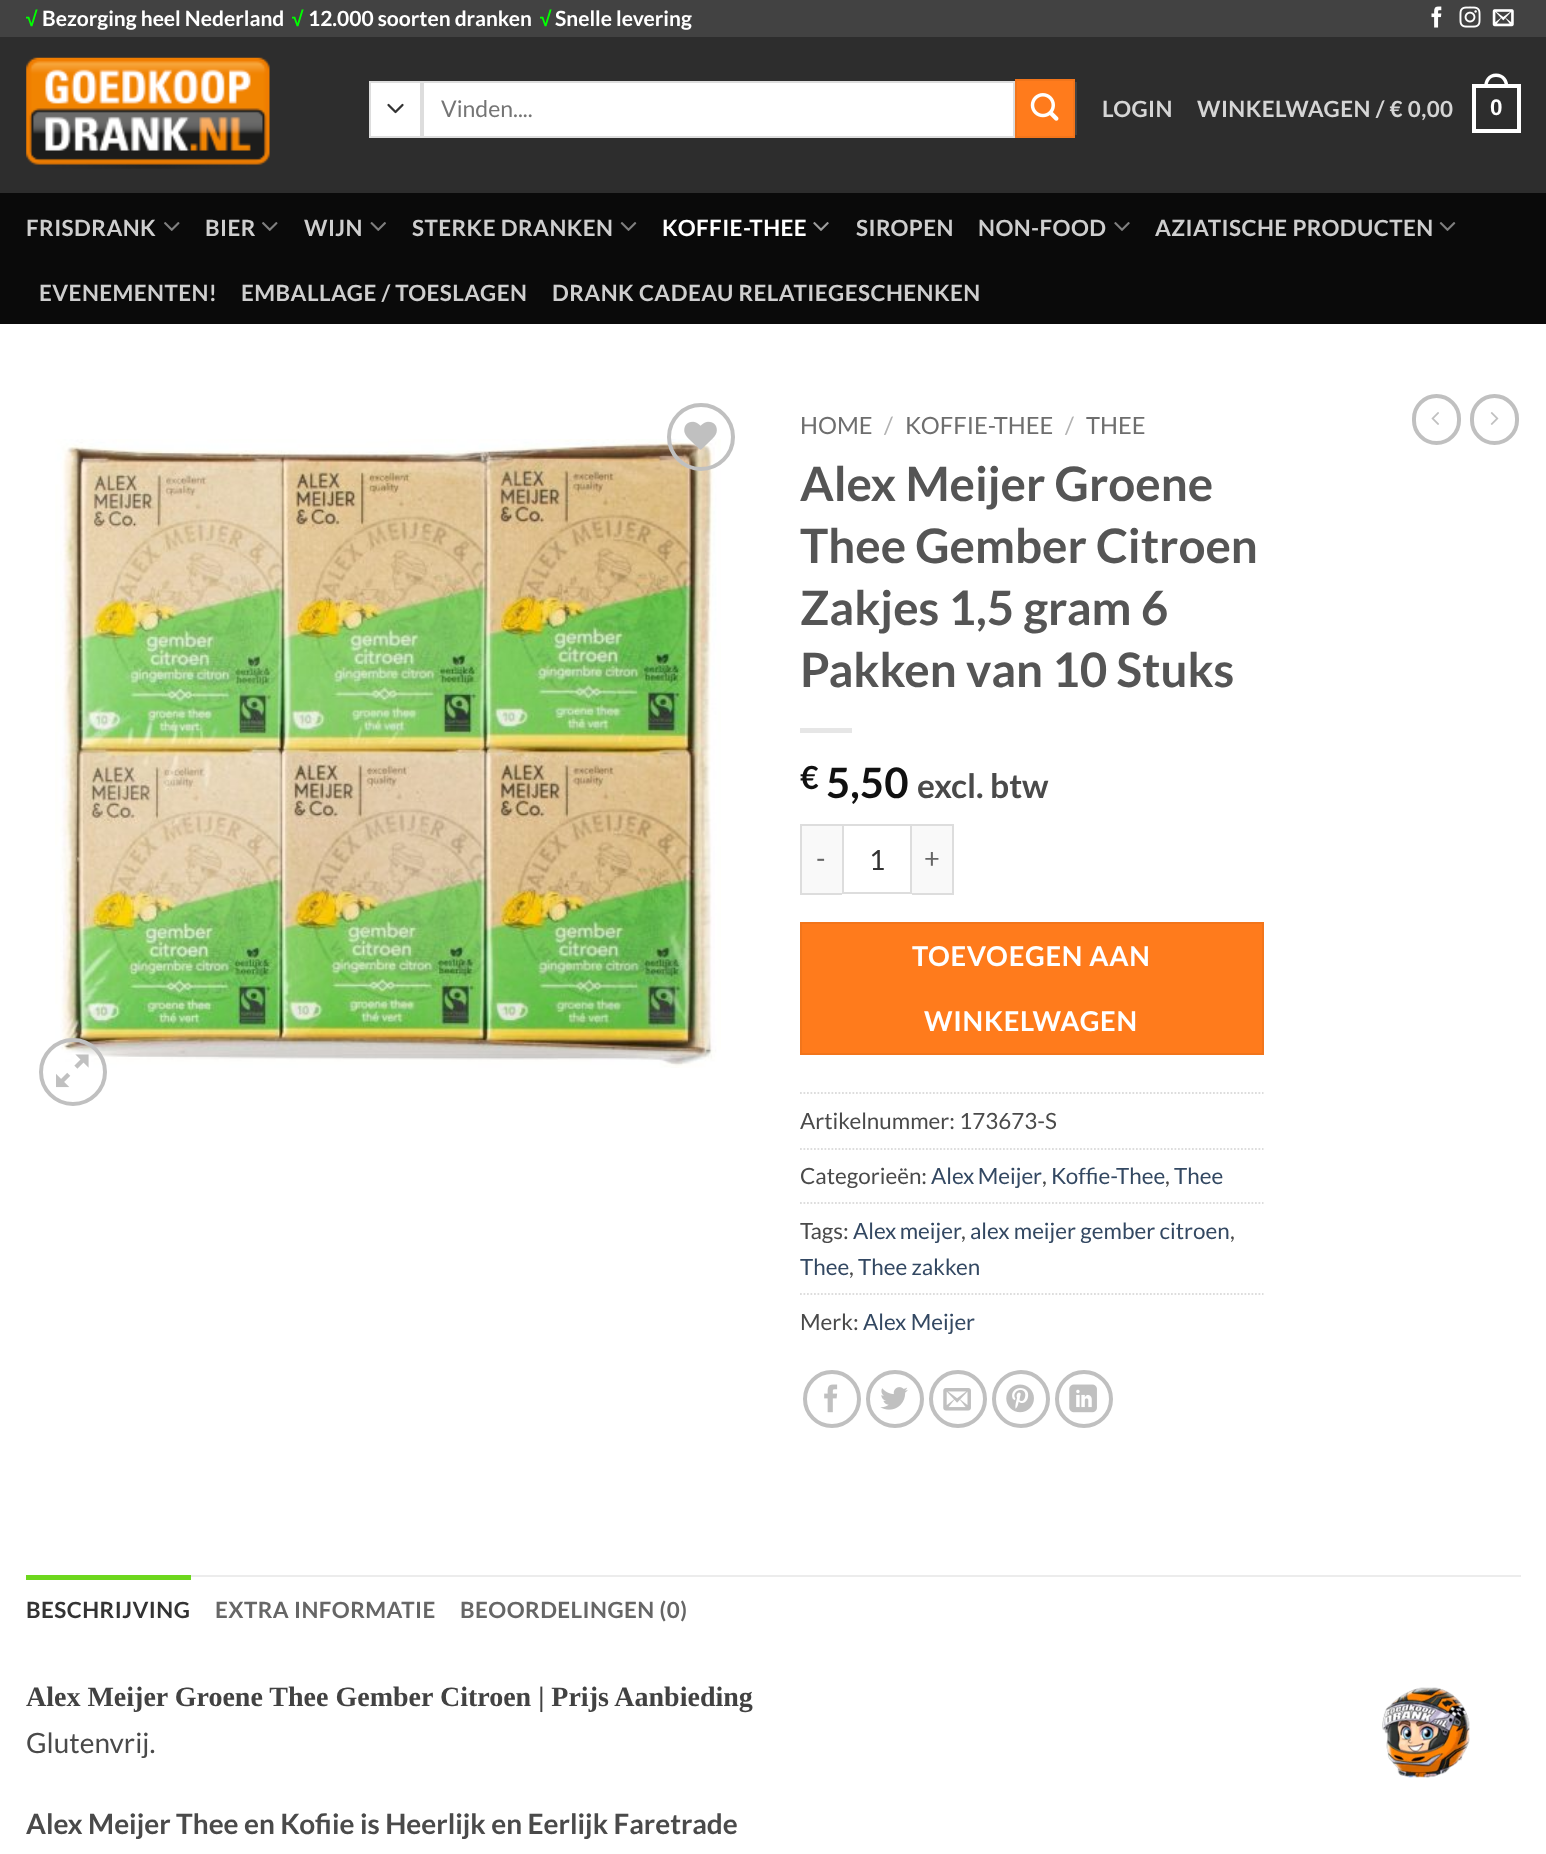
<?xml version="1.0" encoding="UTF-8"?>
<svg xmlns="http://www.w3.org/2000/svg" width="1546" height="1854">
    <rect width="100%" height="100%" fill="#FFFFFF"/>
    <rect x="0" y="0" width="1546" height="37" fill="#424242"/>
    <text x="26" y="26" font-family="Liberation Sans" font-size="21" font-weight="700" fill="#00FF00">√</text>
    <text x="42" y="26" font-family="Lato" font-size="21" font-weight="700" fill="#FFFFFF">Bezorging heel Nederland</text>
    <text x="292" y="26" font-family="Liberation Sans" font-size="21" font-weight="700" fill="#00FF00">√</text>
    <text x="308" y="26" font-family="Lato" font-size="21" font-weight="700" fill="#FFFFFF">12.000 soorten dranken</text>
    <text x="540" y="26" font-family="Liberation Sans" font-size="21" font-weight="700" fill="#00FF00">√</text>
    <text x="555" y="26" font-family="Lato" font-size="21" font-weight="700" fill="#FFFFFF">Snelle levering</text>
    <image x="1431" y="6" width="11" height="22" href="img_01.png"/>
    <image x="1459" y="6" width="22" height="22" href="img_02.png"/>
    <image x="1492" y="9" width="22" height="18" href="img_03.png"/>
    <rect x="0" y="37" width="1546" height="156" fill="#2D2D2D"/>
    <image x="26" y="57" width="244" height="112" href="img_04.png"/>
    <rect x="371" y="83" width="49" height="53" fill="#FFFFFF"/>
    <path d="M 388.5 105 L 395.5 112 L 402.5 105" fill="none" stroke="#333333" stroke-width="2.3" stroke-linecap="round" stroke-linejoin="round"/>
    <rect x="370" y="82" width="51" height="55" fill="none" stroke="#DDDDDD" stroke-width="2"/>
    <rect x="423" y="82" width="591" height="55" fill="#FFFFFF" stroke="#DDDDDD" stroke-width="2"/>
    <text x="441" y="117" font-family="Lato" font-size="23" fill="#757575">Vinden....</text>
    <rect x="1016" y="80" width="58" height="57" fill="#FF7B1C" stroke="#F2751B" stroke-width="2"/>
    <image x="1030" y="93" width="29" height="28" href="img_05.png"/>
    <rect x="1075" y="82" width="2" height="53" fill="#424242"/>
    <text x="1102" y="117" font-family="Lato" font-size="22.4" font-weight="700" letter-spacing="0.45" fill="#D5D5D5">LOGIN</text>
    <text x="1197" y="117" font-family="Lato" font-size="22.4" font-weight="700" letter-spacing="0.45" fill="#D5D5D5">WINKELWAGEN / € 0,00</text>
    <rect x="1474" y="86" width="45" height="45" fill="none" stroke="#FFFFFF" stroke-width="4"/>
    <path d="M 1496 73.5 C 1504.5 73.5 1508.5 80 1508.5 87.5 H 1484 C 1484 80 1488 73.5 1496 73.5 Z M 1496 77 C 1502.5 77 1505 82 1505 87.5 H 1487.5 C 1487.5 82 1490 77 1496 77 Z" fill="#FFFFFF" fill-rule="evenodd"/>
    <text x="1490" y="115" font-family="Liberation Sans" font-size="22.4" font-weight="700" letter-spacing="0.45" fill="#FFFFFF">0</text>
    <rect x="0" y="193" width="1546" height="131" fill="#0A0A0A"/>
    <text x="26" y="236" font-family="Lato" font-size="22.4" font-weight="700" letter-spacing="0.45" fill="#CECECE">FRISDRANK</text>
    <image x="164" y="222" width="16" height="9" href="img_06.png"/>
    <text x="205" y="236" font-family="Lato" font-size="22.4" font-weight="700" letter-spacing="0.45" fill="#CECECE">BIER</text>
    <image x="262" y="222" width="16" height="9" href="img_06.png"/>
    <text x="304" y="236" font-family="Lato" font-size="22.4" font-weight="700" letter-spacing="0.45" fill="#CECECE">WIJN</text>
    <image x="370" y="222" width="16" height="9" href="img_07.png"/>
    <text x="412" y="236" font-family="Lato" font-size="22.4" font-weight="700" letter-spacing="0.45" fill="#CECECE">STERKE DRANKEN</text>
    <image x="620" y="222" width="17" height="9" href="img_08.png"/>
    <text x="662" y="236" font-family="Lato" font-size="22.4" font-weight="700" letter-spacing="0.45" fill="#FFFFFF">KOFFIE-THEE</text>
    <image x="813" y="222" width="16" height="9" href="img_09.png"/>
    <text x="856" y="236" font-family="Lato" font-size="22.4" font-weight="700" letter-spacing="0.45" fill="#CECECE">SIROPEN</text>
    <text x="978" y="236" font-family="Lato" font-size="22.4" font-weight="700" letter-spacing="0.45" fill="#CECECE">NON-FOOD</text>
    <image x="1114" y="222" width="16" height="9" href="img_10.png"/>
    <text x="1155" y="236" font-family="Lato" font-size="22.4" font-weight="700" letter-spacing="0.45" fill="#CECECE">AZIATISCHE PRODUCTEN</text>
    <image x="1439" y="222" width="17" height="9" href="img_08.png"/>
    <text x="39" y="301" font-family="Lato" font-size="22.4" font-weight="700" letter-spacing="0.45" fill="#CECECE">EVENEMENTEN!</text>
    <text x="241" y="301" font-family="Lato" font-size="22.4" font-weight="700" letter-spacing="0.45" fill="#CECECE">EMBALLAGE / TOESLAGEN</text>
    <text x="552" y="301" font-family="Lato" font-size="22.4" font-weight="700" letter-spacing="0.45" fill="#CECECE">DRANK CADEAU RELATIEGESCHENKEN</text>
    <image x="55" y="439" width="666" height="629" href="img_12.png"/>
    <circle cx="701" cy="437" r="32" fill="none" stroke="#C0C0C0" stroke-width="4"/>
    <image x="684" y="421" width="33" height="29" href="img_11.png"/>
    <circle cx="73" cy="1072" r="32" fill="none" stroke="#C0C0C0" stroke-width="4"/>
    <image x="56" y="1054" width="33" height="34" href="img_13.png"/>
    <text x="800" y="434" font-family="Lato" font-size="23.75" fill="#6E6E6E">HOME</text>
    <text x="884" y="434" font-family="Lato" font-size="23.75" fill="#B2B2B2">/</text>
    <text x="905" y="434" font-family="Lato" font-size="23.75" fill="#6E6E6E">KOFFIE-THEE</text>
    <text x="1065" y="434" font-family="Lato" font-size="23.75" fill="#B2B2B2">/</text>
    <text x="1086" y="434" font-family="Lato" font-size="23.75" fill="#6E6E6E">THEE</text>
    <text font-family="Lato" font-size="47.5" font-weight="700" fill="#555555">
        <tspan x="800" y="501">Alex Meijer Groene</tspan>
        <tspan x="800" y="563">Thee Gember Citroen</tspan>
        <tspan x="800" y="625">Zakjes 1,5 gram 6</tspan>
        <tspan x="800" y="687">Pakken van 10 Stuks</tspan>
    </text>
    <rect x="800" y="728" width="52" height="5" fill="#E6E6E6"/>
    <text x="800" y="789" font-family="Lato" font-size="32" font-weight="700" fill="#111111">€</text>
    <text x="826" y="798" font-family="Lato" font-size="42" font-weight="700" fill="#111111">5,50</text>
    <text x="917" y="798" font-family="Lato" font-size="33.5" font-weight="700" fill="#4A4A4A">excl. btw</text>
    <rect x="802" y="826" width="40" height="67" fill="#F9F9F9"/>
    <rect x="800" y="824" width="42" height="2" fill="#DDDDDD"/>
    <rect x="800" y="893" width="42" height="2" fill="#DDDDDD"/>
    <rect x="800" y="824" width="2" height="70" fill="#DDDDDD"/>
    <text x="816" y="868" font-family="Lato" font-size="27.25" letter-spacing="0.75" fill="#666666">-</text>
    <rect x="843" y="825" width="68" height="68" fill="none" stroke="#DDDDDD" stroke-width="2"/>
    <text x="869" y="870" font-family="Lato" font-size="28" fill="#333333">1</text>
    <rect x="912" y="826" width="40" height="67" fill="#F9F9F9"/>
    <rect x="912" y="824" width="42" height="2" fill="#DDDDDD"/>
    <rect x="952" y="824" width="2" height="70" fill="#DDDDDD"/>
    <rect x="912" y="893" width="42" height="2" fill="#DDDDDD"/>
    <text x="924" y="868" font-family="Lato" font-size="27.25" letter-spacing="0.75" fill="#666666">+</text>
    <rect x="801" y="923" width="462" height="131" fill="#FF7B1C" stroke="#F2751B" stroke-width="2"/>
    <text x="912" y="966" font-family="Lato" font-size="27.25" font-weight="700" letter-spacing="0.75" fill="#FFFFFF">TOEVOEGEN AAN</text>
    <text x="924" y="1031" font-family="Lato" font-size="27.25" font-weight="700" letter-spacing="0.75" fill="#FFFFFF">WINKELWAGEN</text>
    <path d="M 800 1093 H 1263.5" fill="none" stroke="#DDDDDD" stroke-width="1.8" stroke-dasharray="1.75 1.75"/>
    <text x="800" y="1129" font-family="Lato" font-size="22.4" fill="#4A4A4A">Artikelnummer: 173673-S</text>
    <path d="M 800 1149 H 1263.5" fill="none" stroke="#DDDDDD" stroke-width="1.8" stroke-dasharray="1.75 1.75"/>
    <text x="800" y="1184" font-family="Lato" font-size="22.4" fill="#4A4A4A">Categorieën:</text>
    <text x="931" y="1184" word-spacing="-1" font-family="Lato" font-size="22.4" fill="#334862">Alex Meijer</text>
    <text x="1042" y="1184" font-family="Lato" font-size="22.4" fill="#4A4A4A">,</text>
    <text x="1051" y="1184" font-family="Lato" font-size="22.4" fill="#334862">Koffie-Thee</text>
    <text x="1165" y="1184" font-family="Lato" font-size="22.4" fill="#4A4A4A">,</text>
    <text x="1174" y="1184" font-family="Lato" font-size="22.4" fill="#334862">Thee</text>
    <path d="M 800 1203 H 1263.5" fill="none" stroke="#DDDDDD" stroke-width="1.8" stroke-dasharray="1.75 1.75"/>
    <text x="800" y="1239" font-family="Lato" font-size="22.4" fill="#4A4A4A">Tags:</text>
    <text x="853" y="1239" word-spacing="-1" font-family="Lato" font-size="22.4" fill="#334862">Alex meijer</text>
    <text x="961" y="1239" font-family="Lato" font-size="22.4" fill="#4A4A4A">,</text>
    <text x="970" y="1239" font-family="Lato" font-size="22.4" fill="#334862">alex meijer gember citroen</text>
    <text x="1230" y="1239" font-family="Lato" font-size="22.4" fill="#4A4A4A">,</text>
    <text x="800" y="1275" font-family="Lato" font-size="22.4" fill="#334862">Thee</text>
    <text x="849" y="1275" font-family="Lato" font-size="22.4" fill="#4A4A4A">,</text>
    <text x="858" y="1275" font-family="Lato" font-size="22.4" fill="#334862">Thee zakken</text>
    <path d="M 800 1294 H 1263.5" fill="none" stroke="#DDDDDD" stroke-width="1.8" stroke-dasharray="1.75 1.75"/>
    <text x="800" y="1330" font-family="Lato" font-size="22.4" fill="#4A4A4A">Merk:</text>
    <text x="863" y="1330" font-family="Lato" font-size="22.4" fill="#334862">Alex Meijer</text>
    <circle cx="832" cy="1399" r="27" fill="none" stroke="#C0C0C0" stroke-width="4"/>
    <image x="824" y="1384" width="14" height="29" href="img_14.png"/>
    <circle cx="895" cy="1399" r="27" fill="none" stroke="#C0C0C0" stroke-width="4"/>
    <image x="880" y="1387" width="28" height="23" href="img_15.png"/>
    <circle cx="958" cy="1399" r="27" fill="none" stroke="#C0C0C0" stroke-width="4"/>
    <image x="943" y="1388" width="28" height="23" href="img_16.png"/>
    <circle cx="1021" cy="1399" r="27" fill="none" stroke="#C0C0C0" stroke-width="4"/>
    <image x="1006" y="1384" width="28" height="29" href="img_17.png"/>
    <circle cx="1084" cy="1399" r="27" fill="none" stroke="#C0C0C0" stroke-width="4"/>
    <image x="1069" y="1384" width="28" height="29" href="img_18.png"/>
    <rect x="1414" y="396" width="45" height="47" rx="22.5" fill="none" stroke="#C0C0C0" stroke-width="4"/>
    <image x="1431" y="412" width="8" height="13" href="img_19.png"/>
    <rect x="1472" y="396" width="45" height="47" rx="22.5" fill="none" stroke="#C0C0C0" stroke-width="4"/>
    <image x="1490" y="412" width="9" height="13" href="img_20.png"/>
    <rect x="191" y="1575" width="1330" height="2" fill="#ECECEC"/>
    <rect x="26" y="1575" width="165" height="5" fill="#6DD71D"/>
    <text x="26" y="1618" font-family="Lato" font-size="22.4" font-weight="700" letter-spacing="0.45" fill="#333333">BESCHRIJVING</text>
    <text x="215" y="1618" font-family="Lato" font-size="22.4" font-weight="700" letter-spacing="0.45" fill="#666666">EXTRA INFORMATIE</text>
    <text x="460" y="1618" font-family="Lato" font-size="22.4" font-weight="700" letter-spacing="0.45" fill="#666666">BEOORDELINGEN (0)</text>
    <text x="26" y="1706" font-family="Liberation Serif" font-size="28" font-weight="700" fill="#424242">Alex Meijer Groene Thee Gember Citroen | Prijs Aanbieding</text>
    <text x="26" y="1753" font-family="Lato" font-size="28" fill="#4A4A4A">Glutenvrij.</text>
    <text x="26" y="1834" font-family="Lato" font-size="28" font-weight="700" fill="#4A4A4A">Alex Meijer Thee en Kofiie is Heerlijk en Eerlijk Faretrade</text>
    <image x="1382" y="1687" width="88" height="91" href="img_21.png"/>
</svg>
